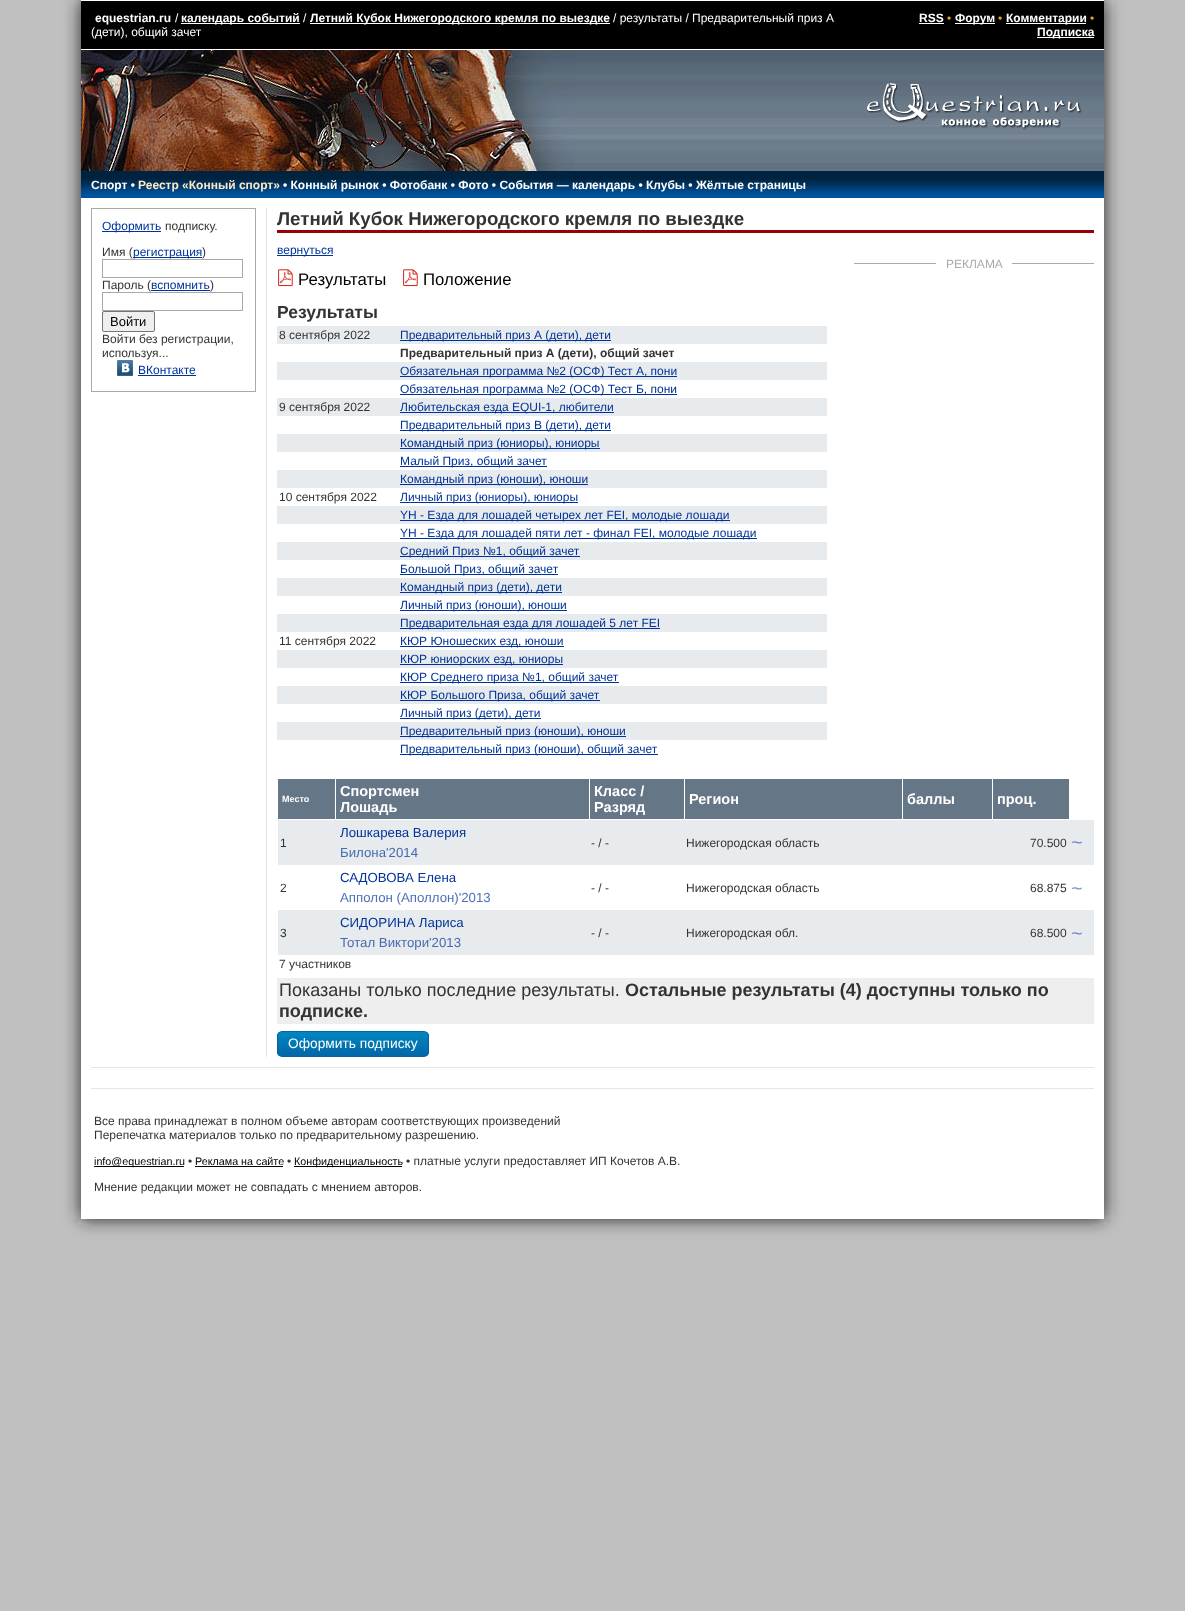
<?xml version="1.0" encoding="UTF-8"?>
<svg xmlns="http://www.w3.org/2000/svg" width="1185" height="1611">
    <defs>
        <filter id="blur1" x="-50%" y="-200%" width="200%" height="500%"><feGaussianBlur stdDeviation="8.5"/></filter>
        <clipPath id="clip1"><rect x="277" y="1031" width="152" height="26" rx="5"/></clipPath>
        <linearGradient id="g1" gradientUnits="userSpaceOnUse" x1="353" y1="1032" x2="353" y2="1056"><stop offset="0" stop-color="#0087BF"/><stop offset="1" stop-color="#0166A8"/></linearGradient>
    </defs>
    <rect width="100%" height="100%" fill="#C0C0C0"/>
    <rect x="81" y="0" width="1023" height="1219" fill="#212121" filter="url(#blur1)"/>
    <rect x="81" y="1" width="1023" height="48" fill="#000000"/>
    <rect x="81" y="0" width="1023" height="1" fill="#FFFFFF"/>
    <rect x="81" y="49" width="1023" height="1" fill="#FFFFFF"/>
    <text x="95" y="22" font-family="Liberation Sans" font-size="12" font-weight="700" fill="#FFFFFF">equestrian.ru</text>
    <text x="175" y="22" font-family="Liberation Sans" font-size="12" fill="#FFFFFF">/</text>
    <rect x="181" y="23" width="119" height="1" fill="#FFFFFF"/>
    <text x="181" y="22" font-family="Liberation Sans" font-size="12" font-weight="700" fill="#FFFFFF">календарь событий</text>
    <text x="303" y="22" font-family="Liberation Sans" font-size="12" fill="#FFFFFF">/</text>
    <rect x="310" y="23" width="300" height="1" fill="#FFFFFF"/>
    <text x="310" y="22" font-family="Liberation Sans" font-size="12" font-weight="700" fill="#FFFFFF">Летний Кубок Нижегородского кремля по выездке</text>
    <text x="613" y="22" font-family="Liberation Sans" font-size="12" fill="#FFFFFF">/ результаты / Предварительный приз А</text>
    <text x="91" y="36" font-family="Liberation Sans" font-size="12" fill="#FFFFFF">(дети), общий зачет</text>
    <text x="919" y="22" font-family="Liberation Sans" font-size="12" font-weight="700" fill="#FFFFFF">RSS</text>
    <rect x="919" y="23" width="25" height="1" fill="#FFFFFF"/>
    <text x="947" y="22" font-family="Liberation Sans" font-size="12" fill="#EBA02B">•</text>
    <rect x="955" y="23" width="40" height="1" fill="#FFFFFF"/>
    <text x="955" y="22" font-family="Liberation Sans" font-size="12" font-weight="700" fill="#FFFFFF">Форум</text>
    <text x="998" y="22" font-family="Liberation Sans" font-size="12" fill="#EBA02B">•</text>
    <rect x="1006" y="23" width="80" height="1" fill="#FFFFFF"/>
    <text x="1006" y="22" font-family="Liberation Sans" font-size="12" font-weight="700" fill="#FFFFFF">Комментарии</text>
    <text x="1090" y="22" font-family="Liberation Sans" font-size="12" fill="#EBA02B">•</text>
    <rect x="1037" y="37" width="57" height="1" fill="#FFFFFF"/>
    <text x="1037" y="36" font-family="Liberation Sans" font-size="12" font-weight="700" fill="#FFFFFF">Подписка</text>
    <image x="575" y="50" width="269" height="121" href="img_01.png"/>
    <image x="81" y="50" width="494" height="121" href="img_02.png"/>
    <image x="844" y="50" width="260" height="121" href="img_03.png"/>
    <image x="867" y="83" width="215" height="47" href="img_04.png"/>
    <image x="81" y="171" width="1023" height="27" href="img_05.png"/>
    <text x="91" y="189" font-family="Liberation Sans" font-size="12" font-weight="700" fill="#FFFFFF">Спорт •</text>
    <text x="138" y="189" font-family="Liberation Sans" font-size="12" font-weight="700" fill="#FEEAC7">Реестр «Конный спорт»</text>
    <text x="283" y="189" font-family="Liberation Sans" font-size="12" font-weight="700" fill="#FFFFFF">• Конный рынок • Фотобанк • Фото • События — календарь • Клубы • Жёлтые страницы</text>
    <rect x="81" y="198" width="1023" height="1021" fill="#FFFFFF"/>
    <rect x="266" y="208" width="1" height="849" fill="#E5E5E5"/>
    <rect x="91.5" y="208.5" width="164" height="183" fill="none" stroke="#A9A9A9"/>
    <rect x="102" y="231" width="59" height="1" fill="#003399"/>
    <text x="102" y="230" font-family="Liberation Sans" font-size="12" fill="#003399">Оформить</text>
    <text x="165" y="230" font-family="Liberation Sans" font-size="12" fill="#333333">подписку.</text>
    <text x="102" y="256" font-family="Liberation Sans" font-size="12" fill="#333333">Имя (</text>
    <rect x="133" y="257" width="69" height="1" fill="#003399"/>
    <text x="133" y="256" font-family="Liberation Sans" font-size="12" fill="#003399">регистрация</text>
    <text x="202" y="256" font-family="Liberation Sans" font-size="12" fill="#333333">)</text>
    <rect x="102.5" y="259.5" width="140" height="18" fill="none" stroke="#A9A9A9"/>
    <text x="102" y="289" font-family="Liberation Sans" font-size="12" fill="#333333">Пароль (</text>
    <text x="151" y="289" font-family="Liberation Sans" font-size="12" fill="#003399">вспомнить</text>
    <rect x="151" y="290" width="59" height="1" fill="#003399"/>
    <text x="210" y="289" font-family="Liberation Sans" font-size="12" fill="#333333">)</text>
    <rect x="102.5" y="292.5" width="140" height="18" fill="none" stroke="#A9A9A9"/>
    <rect x="102.5" y="311.5" width="52" height="20" rx="1.5" fill="#EFEFEF" stroke="#767676"/>
    <text x="110" y="326" font-family="Liberation Sans" font-size="13" fill="#000000">Войти</text>
    <text font-family="Liberation Sans" font-size="12" fill="#333333">
        <tspan x="102" y="343">Войти без регистрации,</tspan>
        <tspan x="102" y="357">используя...</tspan>
    </text>
    <image x="117" y="360" width="16" height="16" href="img_06.png"/>
    <text x="138" y="374" font-family="Liberation Sans" font-size="12" fill="#003399">ВКонтакте</text>
    <rect x="138" y="375" width="58" height="1" fill="#003399"/>
    <rect x="277" y="230" width="817" height="3" fill="#990000"/>
    <text x="277" y="225" font-family="Liberation Sans" font-size="18.7" font-weight="700" fill="#333333">Летний Кубок Нижегородского кремля по выездке</text>
    <rect x="277" y="255" width="56" height="1" fill="#003399"/>
    <text x="277" y="254" font-family="Liberation Sans" font-size="12" fill="#003399">вернуться</text>
    <rect x="854" y="263" width="240" height="1" fill="#AAAAAA"/>
    <rect x="936" y="263" width="76" height="1" fill="#FFFFFF"/>
    <text x="946" y="268" font-family="Liberation Sans" font-size="12" fill="#AAAAAA">РЕКЛАМА</text>
    <image x="278" y="269" width="15" height="18" href="img_07.png"/>
    <text x="298" y="285" font-family="Liberation Sans" font-size="16.75" fill="#000000">Результаты</text>
    <image x="403" y="269" width="15" height="18" href="img_07.png"/>
    <text x="423" y="285" font-family="Liberation Sans" font-size="16.75" fill="#000000">Положение</text>
    <text x="277" y="318" font-family="Liberation Sans" font-size="17.5" font-weight="700" fill="#333333">Результаты</text>
    <rect x="277" y="326" width="550" height="18" fill="#E8EBED"/>
    <text x="279" y="339" font-family="Liberation Sans" font-size="12" fill="#333333">8 сентября 2022</text>
    <rect x="400" y="340" width="211" height="1" fill="#003399"/>
    <text x="400" y="339" font-family="Liberation Sans" font-size="12" fill="#003399">Предварительный приз А (дети), дети</text>
    <text x="400" y="357" font-family="Liberation Sans" font-size="12" font-weight="700" fill="#333333">Предварительный приз А (дети), общий зачет</text>
    <rect x="277" y="362" width="550" height="18" fill="#E8EBED"/>
    <rect x="400" y="376" width="277" height="1" fill="#003399"/>
    <text x="400" y="375" font-family="Liberation Sans" font-size="12" fill="#003399">Обязательная программа №2 (ОСФ) Тест А, пони</text>
    <rect x="400" y="394" width="277" height="1" fill="#003399"/>
    <text x="400" y="393" font-family="Liberation Sans" font-size="12" fill="#003399">Обязательная программа №2 (ОСФ) Тест Б, пони</text>
    <rect x="277" y="398" width="550" height="18" fill="#E8EBED"/>
    <text x="279" y="411" font-family="Liberation Sans" font-size="12" fill="#333333">9 сентября 2022</text>
    <rect x="400" y="412" width="214" height="1" fill="#003399"/>
    <text x="400" y="411" font-family="Liberation Sans" font-size="12" fill="#003399">Любительская езда EQUI-1, любители</text>
    <rect x="400" y="430" width="211" height="1" fill="#003399"/>
    <text x="400" y="429" font-family="Liberation Sans" font-size="12" fill="#003399">Предварительный приз В (дети), дети</text>
    <rect x="277" y="434" width="550" height="18" fill="#E8EBED"/>
    <rect x="400" y="448" width="200" height="1" fill="#003399"/>
    <text x="400" y="447" font-family="Liberation Sans" font-size="12" fill="#003399">Командный приз (юниоры), юниоры</text>
    <rect x="400" y="466" width="147" height="1" fill="#003399"/>
    <text x="400" y="465" font-family="Liberation Sans" font-size="12" fill="#003399">Малый Приз, общий зачет</text>
    <rect x="277" y="470" width="550" height="18" fill="#E8EBED"/>
    <rect x="400" y="484" width="188" height="1" fill="#003399"/>
    <text x="400" y="483" font-family="Liberation Sans" font-size="12" fill="#003399">Командный приз (юноши), юноши</text>
    <text x="279" y="501" font-family="Liberation Sans" font-size="12" fill="#333333">10 сентября 2022</text>
    <rect x="400" y="502" width="178" height="1" fill="#003399"/>
    <text x="400" y="501" font-family="Liberation Sans" font-size="12" fill="#003399">Личный приз (юниоры), юниоры</text>
    <rect x="277" y="506" width="550" height="18" fill="#E8EBED"/>
    <rect x="400" y="520" width="330" height="1" fill="#003399"/>
    <text x="400" y="519" font-family="Liberation Sans" font-size="12" fill="#003399">YH - Езда для лошадей четырех лет FEI, молодые лошади</text>
    <rect x="400" y="538" width="357" height="1" fill="#003399"/>
    <text x="400" y="537" font-family="Liberation Sans" font-size="12" fill="#003399">YH - Езда для лошадей пяти лет - финал FEI, молодые лошади</text>
    <rect x="277" y="542" width="550" height="18" fill="#E8EBED"/>
    <rect x="400" y="556" width="180" height="1" fill="#003399"/>
    <text x="400" y="555" font-family="Liberation Sans" font-size="12" fill="#003399">Средний Приз №1, общий зачет</text>
    <rect x="400" y="574" width="158" height="1" fill="#003399"/>
    <text x="400" y="573" font-family="Liberation Sans" font-size="12" fill="#003399">Большой Приз, общий зачет</text>
    <rect x="277" y="578" width="550" height="18" fill="#E8EBED"/>
    <rect x="400" y="592" width="162" height="1" fill="#003399"/>
    <text x="400" y="591" font-family="Liberation Sans" font-size="12" fill="#003399">Командный приз (дети), дети</text>
    <rect x="400" y="610" width="167" height="1" fill="#003399"/>
    <text x="400" y="609" font-family="Liberation Sans" font-size="12" fill="#003399">Личный приз (юноши), юноши</text>
    <rect x="277" y="614" width="550" height="18" fill="#E8EBED"/>
    <rect x="400" y="628" width="260" height="1" fill="#003399"/>
    <text x="400" y="627" font-family="Liberation Sans" font-size="12" fill="#003399">Предварительная езда для лошадей 5 лет FEI</text>
    <text x="279" y="645" font-family="Liberation Sans" font-size="12" fill="#333333">11 сентября 2022</text>
    <rect x="400" y="646" width="164" height="1" fill="#003399"/>
    <text x="400" y="645" font-family="Liberation Sans" font-size="12" fill="#003399">КЮР Юношеских езд, юноши</text>
    <rect x="277" y="650" width="550" height="18" fill="#E8EBED"/>
    <rect x="400" y="664" width="163" height="1" fill="#003399"/>
    <text x="400" y="663" font-family="Liberation Sans" font-size="12" fill="#003399">КЮР юниорских езд, юниоры</text>
    <rect x="400" y="682" width="219" height="1" fill="#003399"/>
    <text x="400" y="681" font-family="Liberation Sans" font-size="12" fill="#003399">КЮР Среднего приза №1, общий зачет</text>
    <rect x="277" y="686" width="550" height="18" fill="#E8EBED"/>
    <rect x="400" y="700" width="200" height="1" fill="#003399"/>
    <text x="400" y="699" font-family="Liberation Sans" font-size="12" fill="#003399">КЮР Большого Приза, общий зачет</text>
    <rect x="400" y="718" width="141" height="1" fill="#003399"/>
    <text x="400" y="717" font-family="Liberation Sans" font-size="12" fill="#003399">Личный приз (дети), дети</text>
    <rect x="277" y="722" width="550" height="18" fill="#E8EBED"/>
    <rect x="400" y="736" width="226" height="1" fill="#003399"/>
    <text x="400" y="735" font-family="Liberation Sans" font-size="12" fill="#003399">Предварительный приз (юноши), юноши</text>
    <rect x="400" y="754" width="258" height="1" fill="#003399"/>
    <text x="400" y="753" font-family="Liberation Sans" font-size="12" fill="#003399">Предварительный приз (юноши), общий зачет</text>
    <rect x="278" y="779" width="57" height="40" fill="#657686"/>
    <text x="282" y="802" font-family="Liberation Sans" font-size="9" font-weight="700" fill="#FFFFFF">Место</text>
    <rect x="336" y="779" width="253" height="40" fill="#657686"/>
    <text font-family="Liberation Sans" font-size="14.5" font-weight="700" fill="#FFFFFF">
        <tspan x="340" y="796">Спортсмен</tspan>
        <tspan x="340" y="812">Лошадь</tspan>
    </text>
    <rect x="590" y="779" width="94" height="40" fill="#657686"/>
    <text font-family="Liberation Sans" font-size="14.5" font-weight="700" fill="#FFFFFF">
        <tspan x="594" y="796">Класс /</tspan>
        <tspan x="594" y="812">Разряд</tspan>
    </text>
    <rect x="685" y="779" width="217" height="40" fill="#657686"/>
    <text x="689" y="804" font-family="Liberation Sans" font-size="14.5" font-weight="700" fill="#FFFFFF">Регион</text>
    <rect x="903" y="779" width="89" height="40" fill="#657686"/>
    <text x="907" y="804" font-family="Liberation Sans" font-size="14.5" font-weight="700" fill="#FFFFFF">баллы</text>
    <rect x="993" y="779" width="76" height="40" fill="#657686"/>
    <text x="997" y="804" font-family="Liberation Sans" font-size="14.5" font-weight="700" fill="#FFFFFF">проц.</text>
    <rect x="278" y="820" width="816" height="45" fill="#E8EBED"/>
    <text x="280" y="847" font-family="Liberation Sans" font-size="12" fill="#333333">1</text>
    <text x="340" y="837" font-family="Liberation Sans" font-size="13.25" fill="#003399">Лошкарева Валерия</text>
    <text x="340" y="857" font-family="Liberation Sans" font-size="13.25" fill="#466AB2">Билона'2014</text>
    <text x="591" y="847" font-family="Liberation Sans" font-size="12" fill="#333333">- / -</text>
    <text x="686" y="847" font-family="Liberation Sans" font-size="12" fill="#333333">Нижегородская область</text>
    <text x="1030" y="847" font-family="Liberation Sans" font-size="12" fill="#333333">70.500</text>
    <text x="1071" y="849" font-family="Liberation Sans" font-size="20" fill="#748FC3">~</text>
    <text x="280" y="892" font-family="Liberation Sans" font-size="12" fill="#333333">2</text>
    <text x="340" y="882" font-family="Liberation Sans" font-size="13.25" fill="#003399">САДОВОВА Елена</text>
    <text x="340" y="902" font-family="Liberation Sans" font-size="13.25" fill="#4D70B8">Апполон (Аполлон)'2013</text>
    <text x="591" y="892" font-family="Liberation Sans" font-size="12" fill="#333333">- / -</text>
    <text x="686" y="892" font-family="Liberation Sans" font-size="12" fill="#333333">Нижегородская область</text>
    <text x="1030" y="892" font-family="Liberation Sans" font-size="12" fill="#333333">68.875</text>
    <text x="1071" y="895" font-family="Liberation Sans" font-size="20" fill="#8099CC">~</text>
    <rect x="278" y="910" width="816" height="45" fill="#E8EBED"/>
    <text x="280" y="937" font-family="Liberation Sans" font-size="12" fill="#333333">3</text>
    <text x="340" y="927" font-family="Liberation Sans" font-size="13.25" fill="#003399">СИДОРИНА Лариса</text>
    <text x="340" y="947" font-family="Liberation Sans" font-size="13.25" fill="#466AB2">Тотал Виктори'2013</text>
    <text x="591" y="937" font-family="Liberation Sans" font-size="12" fill="#333333">- / -</text>
    <text x="686" y="937" font-family="Liberation Sans" font-size="12" fill="#333333">Нижегородская обл.</text>
    <text x="1030" y="937" font-family="Liberation Sans" font-size="12" fill="#333333">68.500</text>
    <text x="1071" y="940" font-family="Liberation Sans" font-size="20" fill="#748FC3">~</text>
    <text x="279" y="968" font-family="Liberation Sans" font-size="12" fill="#333333">7 участников</text>
    <rect x="277" y="978" width="817" height="46" fill="#EEEEEE"/>
    <text x="279" y="996" font-family="Liberation Sans" font-size="18" fill="#333333">Показаны только последние результаты.</text>
    <text x="625" y="996" font-family="Liberation Sans" font-size="18" font-weight="700" fill="#333333">Остальные результаты (4) доступны только по</text>
    <text x="279" y="1017" font-family="Liberation Sans" font-size="18" font-weight="700" fill="#333333">подписке.</text>
    <g clip-path="url(#clip1)">
        <rect x="277" y="1032" width="152" height="24" fill="url(#g1)"/>
    </g>
    <rect x="277.5" y="1031.5" width="151" height="25" rx="4.5" fill="none" stroke="#0163A6"/>
    <text x="288" y="1048" font-family="Liberation Sans" font-size="13.75" fill="#FFFFFF">Оформить подписку</text>
    <rect x="91" y="1067" width="1003" height="1" fill="#E5E5E5"/>
    <rect x="91" y="1088" width="1003" height="1" fill="#E5E5E5"/>
    <text font-family="Liberation Sans" font-size="12" fill="#333333">
        <tspan x="94" y="1125">Все права принадлежат в полном объеме авторам соответствующих произведений</tspan>
        <tspan x="94" y="1139">Перепечатка материалов только по предварительному разрешению.</tspan>
    </text>
    <rect x="94" y="1166" width="90" height="1" fill="#000000"/>
    <text x="94" y="1165" font-family="Liberation Sans" font-size="10.75" fill="#000000">info@equestrian.ru</text>
    <text x="188" y="1165" font-family="Liberation Sans" font-size="12" fill="#333333">•</text>
    <text x="195" y="1165" font-family="Liberation Sans" font-size="10.75" fill="#000000">Реклама на сайте</text>
    <rect x="195" y="1166" width="88" height="1" fill="#000000"/>
    <text x="287" y="1165" font-family="Liberation Sans" font-size="12" fill="#333333">•</text>
    <rect x="294" y="1166" width="108" height="1" fill="#000000"/>
    <text x="294" y="1165" font-family="Liberation Sans" font-size="10.75" fill="#000000">Конфиденциальность</text>
    <text x="406" y="1165" font-family="Liberation Sans" font-size="12" fill="#333333">• платные услуги предоставляет ИП Кочетов А.В.</text>
    <text x="94" y="1191" font-family="Liberation Sans" font-size="12" fill="#333333">Мнение редакции может не совпадать с мнением авторов.</text>
</svg>
